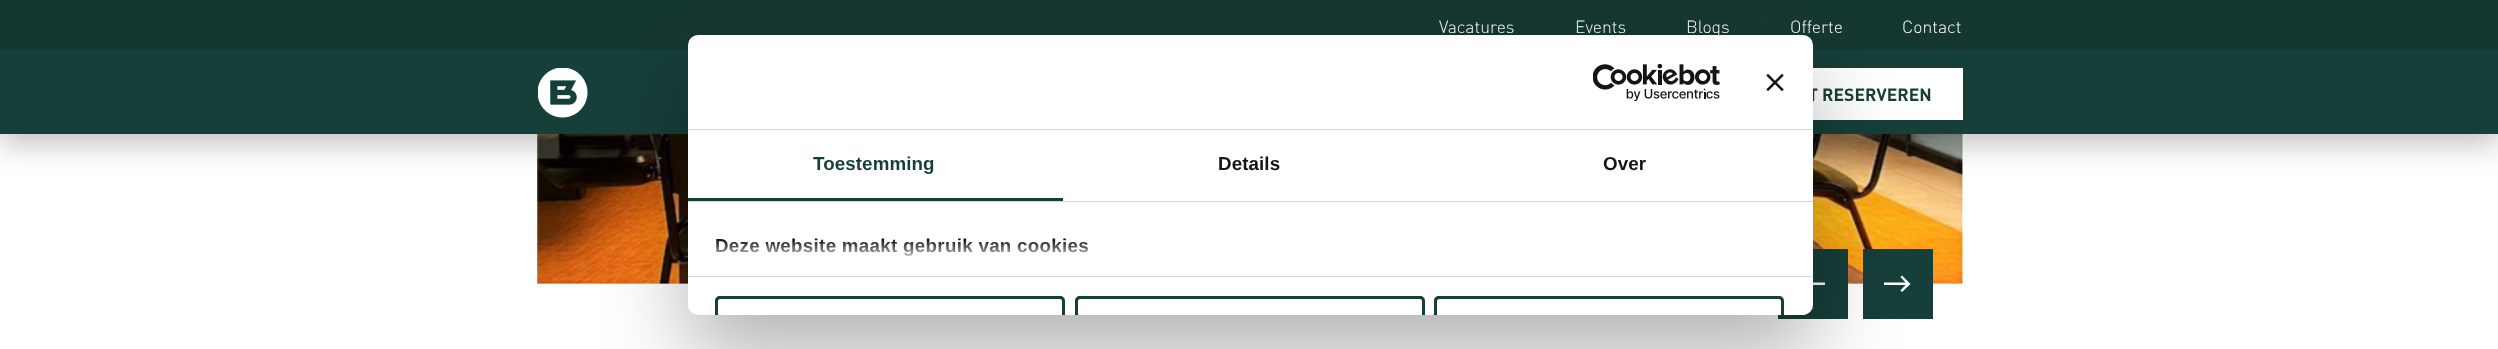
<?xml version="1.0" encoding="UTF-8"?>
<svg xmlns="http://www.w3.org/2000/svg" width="2498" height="349">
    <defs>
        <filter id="blur1" x="-50%" y="-200%" width="200%" height="500%"><feGaussianBlur stdDeviation="15"/></filter>
        <filter id="blur2" x="-50%" y="-200%" width="200%" height="500%"><feGaussianBlur stdDeviation="42.5"/></filter>
        <linearGradient id="g1" gradientUnits="userSpaceOnUse" x1="1237" y1="276" x2="1237" y2="240"><stop offset="0" stop-color="#FFFFFF"/><stop offset="0.5" stop-color="#FFFFFF" stop-opacity="0.8"/><stop offset="1" stop-color="#FFFFFF" stop-opacity="0"/></linearGradient>
    </defs>
    <rect width="100%" height="100%" fill="#FFFFFF"/>
    <image x="537" y="134" width="1426" height="150" href="img_02.png"/>
    <rect x="0" y="10" width="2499" height="134" fill="#000000" fill-opacity="0.25" filter="url(#blur1)"/>
    <rect x="0" y="50" width="2498" height="84" fill="#163F39"/>
    <rect x="0" y="0" width="2498" height="50" fill="#153732"/>
    <text x="1439" y="33" font-family="DIN" font-size="17.5" font-weight="300" fill="#FFFFFF">Vacatures</text>
    <text x="1575" y="33" font-family="DIN" font-size="17.5" font-weight="300" fill="#FFFFFF">Events</text>
    <text x="1686" y="33" font-family="DIN" font-size="17.5" font-weight="300" fill="#FFFFFF">Blogs</text>
    <text x="1790" y="33" font-family="DIN" font-size="17.5" font-weight="300" fill="#FFFFFF">Offerte</text>
    <text x="1902" y="33" font-family="DIN" font-size="17.5" font-weight="300" fill="#FFFFFF">Contact</text>
    <image x="538" y="68" width="50" height="50" href="img_01.png"/>
    <rect x="1813" y="68" width="150" height="52" fill="#FFFFFF"/>
    <text x="1808" y="101" font-family="DIN" font-size="17.5" font-weight="700" fill="#163F39">T RESERVEREN</text>
    <rect x="1778" y="249" width="70" height="70" fill="#163F39"/>
    <path d="M 1803 285 H 1825 V 282.5 H 1803 L 1808.5 277 L 1806.5 275.5 L 1798 284 L 1806.5 292 L 1808.5 290.5 Z" fill="#FFFFFF" fill-rule="evenodd"/>
    <rect x="1863" y="249" width="70" height="70" fill="#163F39"/>
    <path d="M 1905.5 282.5 H 1884 V 285 H 1905.5 L 1900.5 290.5 L 1902 292 L 1910.5 284 L 1902 275.5 L 1900.5 277 Z" fill="#FFFFFF" fill-rule="evenodd"/>
    <rect x="688" y="75" width="1125" height="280" rx="10" fill="#000000" fill-opacity="0.3" filter="url(#blur2)"/>
    <rect x="688" y="35" width="1125" height="280" rx="10" fill="#FFFFFF"/>
    <rect x="688" y="129" width="1125" height="1" fill="#D6D6D6"/>
    <image x="1593" y="64" width="127" height="37" href="img_03.png"/>
    <image x="1766" y="74" width="18" height="17" href="img_04.png"/>
    <rect x="688" y="201" width="1125" height="1" fill="#D6D6D6"/>
    <rect x="688" y="198" width="375" height="3" fill="#163F39"/>
    <text x="813" y="170" font-family="Liberation Sans" font-size="18.75" font-weight="700" letter-spacing="0.1" fill="#163F39">Toestemming</text>
    <text x="1218" y="170" font-family="Liberation Sans" font-size="18.75" font-weight="700" letter-spacing="0.1" fill="#141414">Details</text>
    <text x="1603" y="170" font-family="Liberation Sans" font-size="18.75" font-weight="700" letter-spacing="0.1" fill="#141414">Over</text>
    <rect x="688" y="276" width="1125" height="1" fill="#D6D6D6"/>
    <text x="715" y="252" font-family="Liberation Sans" font-size="18.75" font-weight="700" letter-spacing="0.3" fill="#141414">Deze website maakt gebruik van cookies</text>
    <rect x="716" y="240" width="373" height="16" fill="url(#g1)"/>
    <path d="M 720 296 C 717 296 715 298 715 301 V 315 H 718 V 301 C 718 300 719 299 720 299 H 1060 C 1061 299 1062 300 1062 301 V 315 H 1065 V 301 C 1065 298 1063 296 1060 296 Z" fill="#163F39"/>
    <path d="M 1080 296 C 1077 296 1075 298 1075 301 V 315 H 1078 V 301 C 1078 300 1079 299 1080 299 H 1420 C 1421 299 1422 300 1422 301 V 315 H 1425 V 301 C 1425 298 1423 296 1420 296 Z" fill="#163F39"/>
    <path d="M 1439 296 C 1436 296 1434 298 1434 301 V 315 H 1437 V 301 C 1437 300 1438 299 1439 299 H 1779 C 1780 299 1781 300 1781 301 V 315 H 1784 V 301 C 1784 298 1782 296 1779 296 Z" fill="#163F39"/>
    <rect x="1803" y="314" width="2" height="1" fill="#FFFFFF"/>
</svg>
